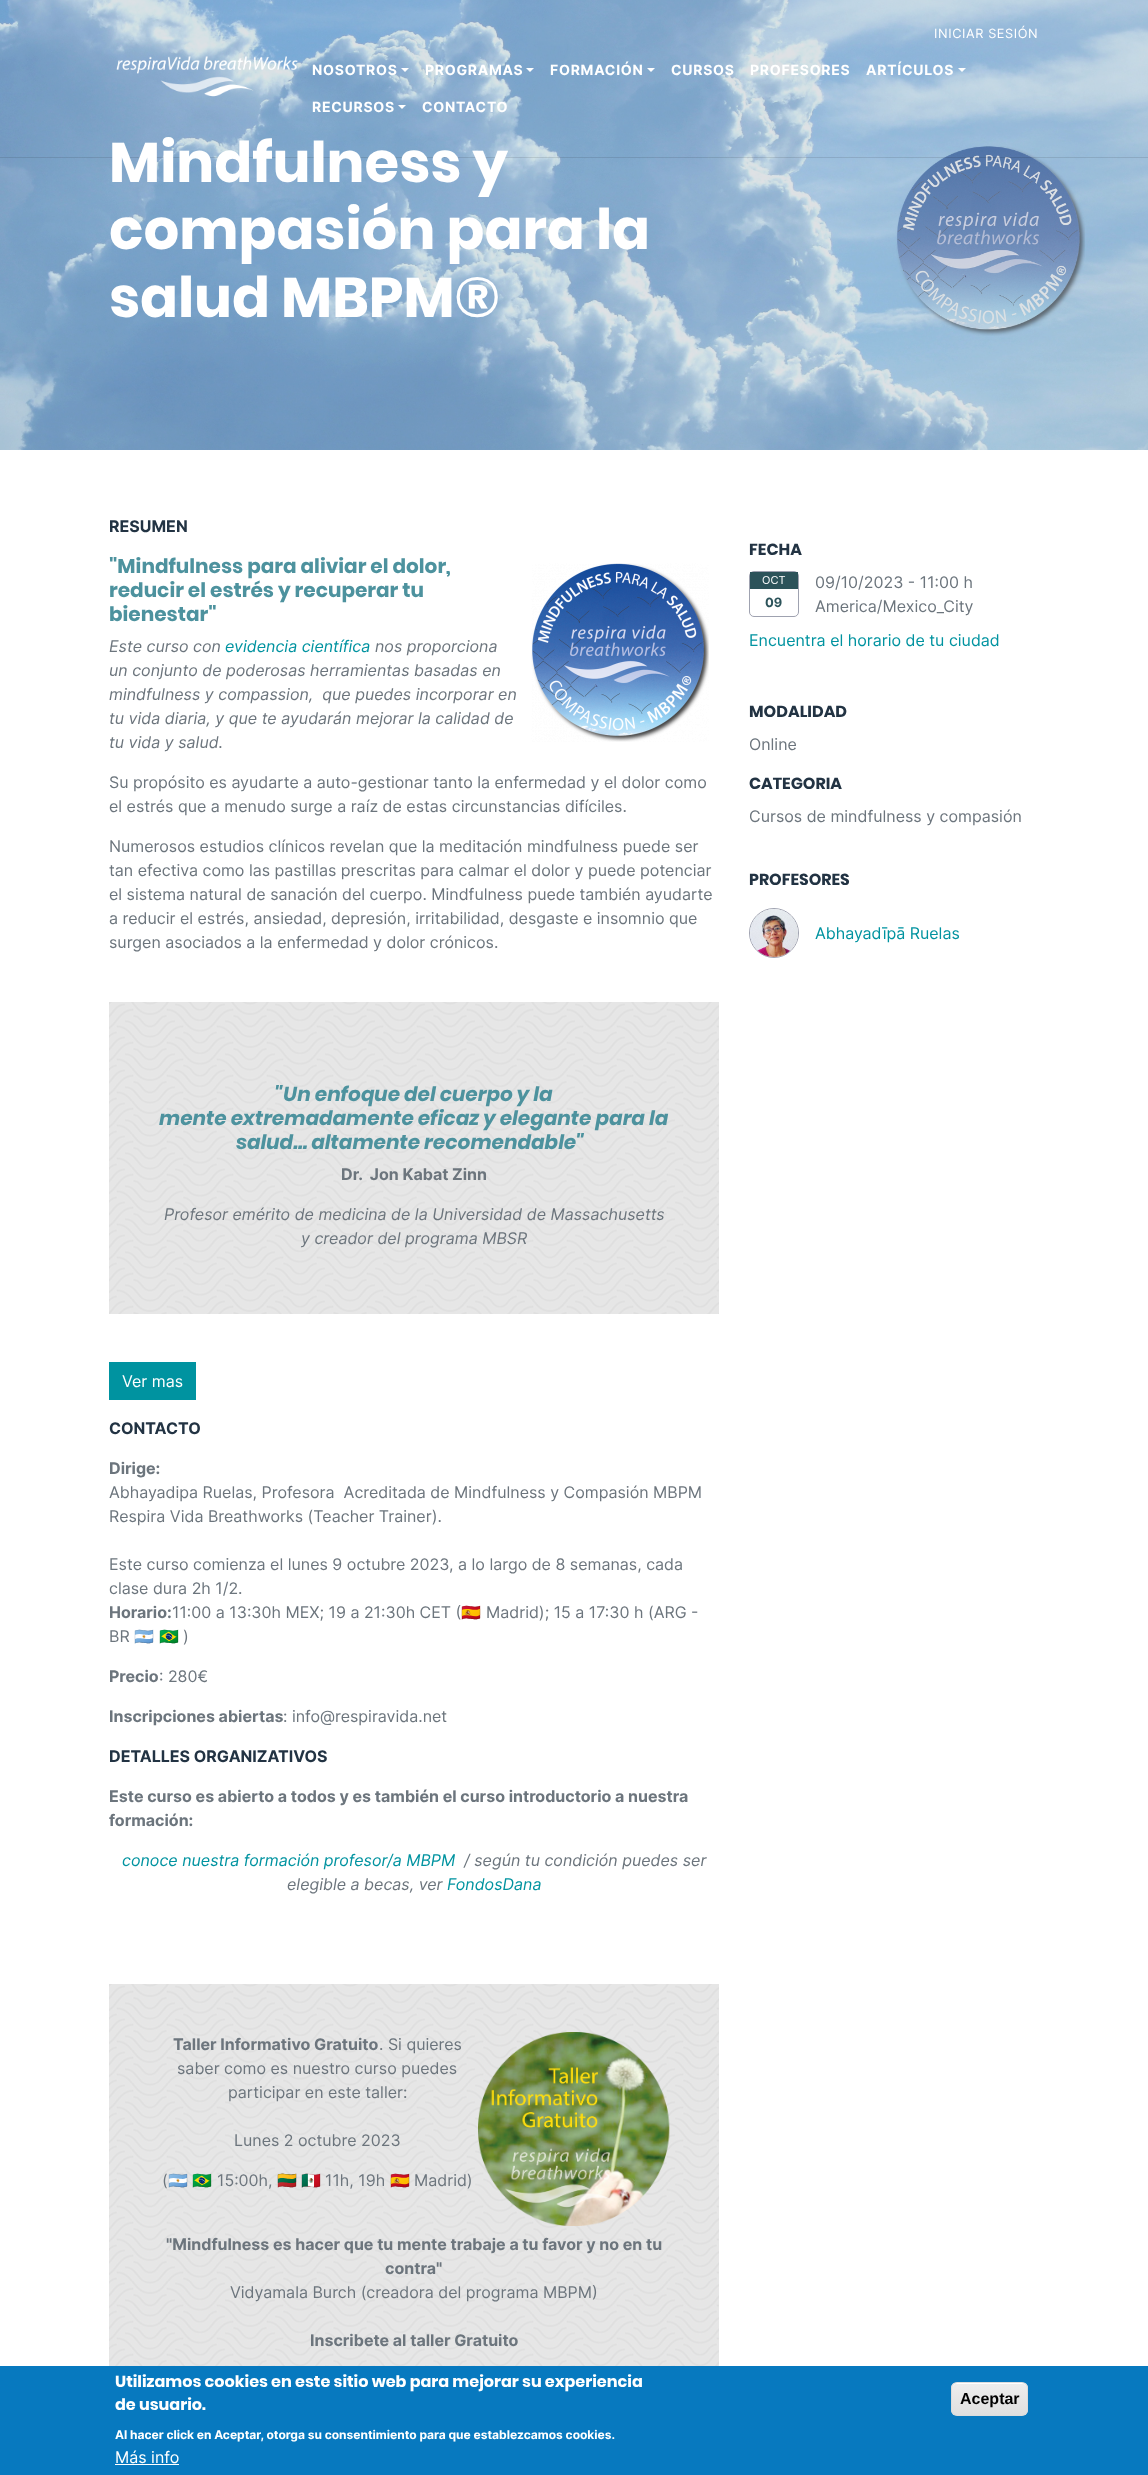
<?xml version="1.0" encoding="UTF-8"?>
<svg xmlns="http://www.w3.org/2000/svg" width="1148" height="2475">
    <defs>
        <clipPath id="clip1"><rect x="951" y="2382" width="77" height="34" rx="6"/></clipPath>
        <linearGradient id="g1" gradientUnits="userSpaceOnUse" x1="990" y1="2383" x2="990" y2="2415"><stop offset="0.05" stop-color="#EDEDED"/><stop offset="1" stop-color="#DFDFDF"/></linearGradient>
    </defs>
    <rect width="100%" height="100%" fill="#FFFFFF"/>
    <image x="0" y="0" width="1148" height="450" href="img_02.png"/>
    <rect x="0" y="157" width="1148" height="1" fill="#000000" fill-opacity="0.1"/>
    <text x="934" y="38" font-family="Inter" font-size="12.75" letter-spacing="0.6" fill="#FFFFFF">INICIAR SESIÓN</text>
    <image x="116" y="56" width="182" height="41" href="img_01.png"/>
    <text x="312" y="75" font-family="Inter" font-size="14" font-weight="700" letter-spacing="0.75" fill="#FFFFFF">NOSOTROS</text>
    <path d="M 401 68 H 409 L 405 72 Z" fill="#FFFFFF"/>
    <text x="425" y="75" font-family="Inter" font-size="14" font-weight="700" letter-spacing="0.75" fill="#FFFFFF">PROGRAMAS</text>
    <path d="M 526 68 H 534 L 530 72 Z" fill="#FFFFFF"/>
    <text x="550" y="75" font-family="Inter" font-size="14" font-weight="700" letter-spacing="0.75" fill="#FFFFFF">FORMACIÓN</text>
    <path d="M 647 68 H 655 L 651 72 Z" fill="#FFFFFF"/>
    <text x="671" y="75" font-family="Inter" font-size="14" font-weight="700" letter-spacing="0.75" fill="#FFFFFF">CURSOS</text>
    <text x="750" y="75" font-family="Inter" font-size="14" font-weight="700" letter-spacing="0.75" fill="#FFFFFF">PROFESORES</text>
    <text x="866" y="75" font-family="Inter" font-size="14" font-weight="700" letter-spacing="0.75" fill="#FFFFFF">ARTÍCULOS</text>
    <path d="M 958 68 H 966 L 962 72 Z" fill="#FFFFFF"/>
    <text x="312" y="112" font-family="Inter" font-size="14" font-weight="700" letter-spacing="0.75" fill="#FFFFFF">RECURSOS</text>
    <path d="M 398 105 H 406 L 402 109 Z" fill="#FFFFFF"/>
    <text x="422" y="112" font-family="Inter" font-size="14" font-weight="700" letter-spacing="0.75" fill="#FFFFFF">CONTACTO</text>
    <text font-family="Poppins" font-size="56" font-weight="700" fill="#FFFFFF">
        <tspan x="109" y="182">Mindfulness y</tspan>
        <tspan x="109" y="249">compasión para la</tspan>
        <tspan x="109" y="317">salud MBPM®</tspan>
    </text>
    <text x="109" y="532" font-family="Inter" font-size="16" font-weight="700" fill="#223343">RESUMEN</text>
    <text x="109" y="573" font-family="Poppins" font-size="20" font-weight="700" fill="#4D929E">"Mindfulness para aliviar el dolor,</text>
    <image x="531" y="563" width="178" height="179" href="img_03.png"/>
    <text font-family="Poppins" font-size="20" font-weight="700" fill="#4D929E">
        <tspan x="109" y="597">reducir el estrés y recuperar tu</tspan>
        <tspan x="109" y="621">bienestar"</tspan>
    </text>
    <text x="109" y="652" font-family="Inter" font-size="16" font-style="italic" fill="#6C757D">Este curso con</text>
    <text x="225" y="652" font-family="Inter" font-size="16" font-style="italic" fill="#0093A0">evidencia científica</text>
    <text x="375" y="652" font-family="Inter" font-size="16" font-style="italic" fill="#6C757D">nos proporciona</text>
    <text font-family="Inter" font-size="16" font-style="italic" fill="#6C757D" xml:space="preserve"><tspan x="109" y="676">un conjunto de poderosas herramientas basadas en</tspan><tspan x="109" y="700">mindfulness y compassion,  que puedes incorporar en</tspan><tspan x="109" y="724">tu vida diaria, y que te ayudarán mejorar la calidad de</tspan><tspan x="109" y="748">tu vida y salud.</tspan></text>
    <text font-family="Inter" font-size="16" fill="#6C757D">
        <tspan x="109" y="788">Su propósito es ayudarte a auto-gestionar tanto la enfermedad y el dolor como</tspan>
        <tspan x="109" y="812">el estrés que a menudo surge a raíz de estas circunstancias difíciles.</tspan>
    </text>
    <text font-family="Inter" font-size="16" fill="#6C757D">
        <tspan x="109" y="852">Numerosos estudios clínicos revelan que la meditación mindfulness puede ser</tspan>
        <tspan x="109" y="876">tan efectiva como las pastillas prescritas para calmar el dolor y puede potenciar</tspan>
        <tspan x="109" y="900">el sistema natural de sanación del cuerpo. Mindfulness puede también ayudarte</tspan>
        <tspan x="109" y="924">a reducir el estrés, ansiedad, depresión, irritabilidad, desgaste e insomnio que</tspan>
        <tspan x="109" y="948">surgen asociados a la enfermedad y dolor crónicos.</tspan>
    </text>
    <image x="109" y="1002" width="610" height="312" href="img_04.png"/>
    <text x="275" y="1101" font-family="Poppins" font-size="20" font-weight="700" font-style="italic" fill="#4D929E">"Un enfoque del cuerpo y la</text>
    <text x="159" y="1125" font-family="Poppins" font-size="20" font-weight="700" font-style="italic" fill="#4D929E">mente extremadamente eficaz y elegante para la</text>
    <text x="236" y="1149" font-family="Poppins" font-size="20" font-weight="700" font-style="italic" fill="#4D929E">salud... altamente recomendable"</text>
    <text x="341" y="1180" font-family="Inter" font-size="16" font-weight="700" fill="#6C757D" xml:space="preserve">Dr.  Jon Kabat Zinn</text>
    <text x="164" y="1220" font-family="Inter" font-size="16" font-style="italic" fill="#6C757D">Profesor emérito de medicina de la Universidad de Massachusetts</text>
    <text x="301" y="1244" font-family="Inter" font-size="16" font-style="italic" fill="#6C757D">y creador del programa MBSR</text>
    <rect x="109" y="1362" width="87" height="38" fill="#0093A0"/>
    <text x="122" y="1387" font-family="Inter" font-size="16" fill="#FFFFFF">Ver mas</text>
    <text x="109" y="1434" font-family="Inter" font-size="16" font-weight="700" fill="#223343">CONTACTO</text>
    <text x="109" y="1474" font-family="Inter" font-size="16" font-weight="700" fill="#6C757D">Dirige:</text>
    <text font-family="Inter" font-size="16" fill="#6C757D" xml:space="preserve"><tspan x="109" y="1498">Abhayadipa Ruelas, Profesora  Acreditada de Mindfulness y Compasión MBPM</tspan><tspan x="109" y="1522">Respira Vida Breathworks (Teacher Trainer).</tspan></text>
    <text font-family="Inter" font-size="16" fill="#6C757D">
        <tspan x="109" y="1570">Este curso comienza el lunes 9 octubre 2023, a lo largo de 8 semanas, cada</tspan>
        <tspan x="109" y="1594">clase dura 2h 1/2.</tspan>
    </text>
    <text x="109" y="1618" font-family="Inter" font-size="16" font-weight="700" fill="#6C757D">Horario:</text>
    <text x="172" y="1618" font-family="Inter" font-size="16" fill="#6C757D">11:00 a 13:30h MEX; 19 a 21:30h CET (</text>
    <text x="461" y="1618" font-family="Noto Color Emoji" font-size="16" fill="#6C757D">🇪🇸</text>
    <text x="486" y="1618" font-family="Inter" font-size="16" fill="#6C757D">Madrid); 15 a 17:30 h (ARG -</text>
    <text x="109" y="1642" font-family="Inter" font-size="16" fill="#6C757D">BR</text>
    <text x="134" y="1642" font-family="Noto Color Emoji" font-size="16" fill="#6C757D">🇦🇷</text>
    <text x="159" y="1642" font-family="Noto Color Emoji" font-size="16" fill="#6C757D">🇧🇷</text>
    <text x="183" y="1642" font-family="Inter" font-size="16" fill="#6C757D">)</text>
    <text x="109" y="1682" font-family="Inter" font-size="16" font-weight="700" fill="#6C757D">Precio</text>
    <text x="159" y="1682" font-family="Inter" font-size="16" fill="#6C757D">: 280€</text>
    <text x="109" y="1722" font-family="Inter" font-size="16" font-weight="700" fill="#6C757D">Inscripciones abiertas</text>
    <text x="283" y="1722" font-family="Inter" font-size="16" fill="#6C757D">: info@respiravida.net</text>
    <text x="109" y="1762" font-family="Inter" font-size="16" font-weight="700" fill="#223343">DETALLES ORGANIZATIVOS</text>
    <text font-family="Inter" font-size="16" font-weight="700" fill="#6C757D">
        <tspan x="109" y="1802">Este curso es abierto a todos y es también el curso introductorio a nuestra</tspan>
        <tspan x="109" y="1826">formación:</tspan>
    </text>
    <text x="122" y="1866" font-family="Inter" font-size="16" font-style="italic" fill="#0093A0">conoce nuestra formación profesor/a MBPM</text>
    <text x="464" y="1866" font-family="Inter" font-size="16" font-style="italic" fill="#6C757D">/ según tu condición puedes ser</text>
    <text x="287" y="1890" font-family="Inter" font-size="16" font-style="italic" fill="#6C757D">elegible a becas, ver</text>
    <text x="447" y="1890" font-family="Inter" font-size="16" font-style="italic" fill="#0093A0">FondosDana</text>
    <image x="109" y="1984" width="610" height="382" href="img_05.png"/>
    <text x="173" y="2050" font-family="Inter" font-size="16" font-weight="700" fill="#6C757D">Taller Informativo Gratuito</text>
    <text x="379" y="2050" font-family="Inter" font-size="16" fill="#6C757D">. Si quieres</text>
    <image x="478" y="2032" width="192" height="194" href="img_06.png"/>
    <text x="177" y="2074" font-family="Inter" font-size="16" fill="#6C757D">saber como es nuestro curso puedes</text>
    <text x="228" y="2098" font-family="Inter" font-size="16" fill="#6C757D">participar en este taller:</text>
    <text x="234" y="2146" font-family="Inter" font-size="16" fill="#6C757D">Lunes 2 octubre 2023</text>
    <text x="162" y="2186" font-family="Inter" font-size="16" fill="#6C757D">(</text>
    <text x="168" y="2186" font-family="Noto Color Emoji" font-size="16" fill="#6C757D">🇦🇷</text>
    <text x="192" y="2186" font-family="Noto Color Emoji" font-size="16" fill="#6C757D">🇧🇷</text>
    <text x="217" y="2186" font-family="Inter" font-size="16" fill="#6C757D">15:00h,</text>
    <text x="277" y="2186" font-family="Noto Color Emoji" font-size="16" fill="#6C757D">🇱🇹</text>
    <text x="301" y="2186" font-family="Noto Color Emoji" font-size="16" fill="#6C757D">🇲🇽</text>
    <text x="325" y="2186" font-family="Inter" font-size="16" fill="#6C757D">11h, 19h</text>
    <text x="390" y="2186" font-family="Noto Color Emoji" font-size="16" fill="#6C757D">🇪🇸</text>
    <text x="414" y="2186" font-family="Inter" font-size="16" fill="#6C757D">Madrid)</text>
    <text x="166" y="2250" font-family="Inter" font-size="16" font-weight="700" fill="#6C757D">"Mindfulness es hacer que tu mente trabaje a tu favor y no en tu</text>
    <text x="385" y="2274" font-family="Inter" font-size="16" font-weight="700" fill="#6C757D">contra"</text>
    <text x="230" y="2298" font-family="Inter" font-size="16" fill="#6C757D">Vidyamala Burch (creadora del programa MBPM)</text>
    <text x="310" y="2346" font-family="Inter" font-size="16" font-weight="700" fill="#6C757D">Inscribete al taller Gratuito</text>
    <text x="749" y="555" font-family="Poppins" font-size="16" font-weight="700" fill="#223343">FECHA</text>
    <rect x="749.5" y="571.5" width="49" height="45" rx="4.5" fill="none" stroke="#9FA2B0"/>
    <rect x="750" y="572" width="48" height="17" fill="#2C535A"/>
    <text x="762" y="584" font-family="Inter" font-size="11" fill="#FFFFFF">OCT</text>
    <text x="765" y="607" font-family="Inter" font-size="12.75" font-weight="700" fill="#2C535A">09</text>
    <text font-family="Inter" font-size="16" fill="#6C757D">
        <tspan x="815" y="588">09/10/2023 - 11:00 h</tspan>
        <tspan x="815" y="612">America/Mexico_City</tspan>
    </text>
    <text x="749" y="646" font-family="Inter" font-size="16" fill="#0093A0">Encuentra el horario de tu ciudad</text>
    <text x="749" y="717" font-family="Poppins" font-size="16" font-weight="700" fill="#223343">MODALIDAD</text>
    <text x="749" y="750" font-family="Inter" font-size="16" fill="#6C757D">Online</text>
    <text x="749" y="789" font-family="Poppins" font-size="16" font-weight="700" fill="#223343">CATEGORIA</text>
    <text x="749" y="822" font-family="Inter" font-size="16" fill="#6C757D">Cursos de mindfulness y compasión</text>
    <text x="749" y="885" font-family="Poppins" font-size="16" font-weight="700" fill="#223343">PROFESORES</text>
    <circle cx="774" cy="933" r="24.5" fill="none" stroke="#9FA2B0"/>
    <image x="750" y="909" width="48" height="48" href="img_07.png"/>
    <text x="815" y="939" font-family="Inter" font-size="16" fill="#0093A0">Abhayadīpā Ruelas</text>
    <rect x="0" y="2366" width="1148" height="109" fill="#0779BF"/>
    <text font-family="Poppins" font-size="16" font-weight="700" fill="#FFFFFF">
        <tspan x="115" y="2387">Utilizamos cookies en este sitio web para mejorar su experiencia</tspan>
        <tspan x="115" y="2410">de usuario.</tspan>
    </text>
    <text x="115" y="2439" font-family="Inter" font-size="12" font-weight="700" fill="#FFFFFF">Al hacer click en Aceptar, otorga su consentimiento para que establezcamos cookies.</text>
    <text x="115" y="2463" font-family="Inter" font-size="16" fill="#FFFFFF">Más info</text>
    <rect x="115" y="2464" width="64" height="1" fill="#FFFFFF"/>
    <g clip-path="url(#clip1)">
        <rect x="951" y="2383" width="77" height="32" fill="url(#g1)"/>
    </g>
    <path d="M 957 2384 H 1022 C 1025 2384 1027 2386 1027 2389 C 1027 2381 1017 2383 1011 2383 H 968 C 962 2383 952 2381 952 2389 C 952 2386 954 2384 957 2384 Z" fill="#FFFFFF"/>
    <rect x="951.5" y="2382.5" width="76" height="33" rx="5.5" fill="none" stroke="#DCDCDC"/>
    <text x="960" y="2404" font-family="Liberation Sans" font-size="16" font-weight="700" fill="#000000">Aceptar</text>
</svg>
